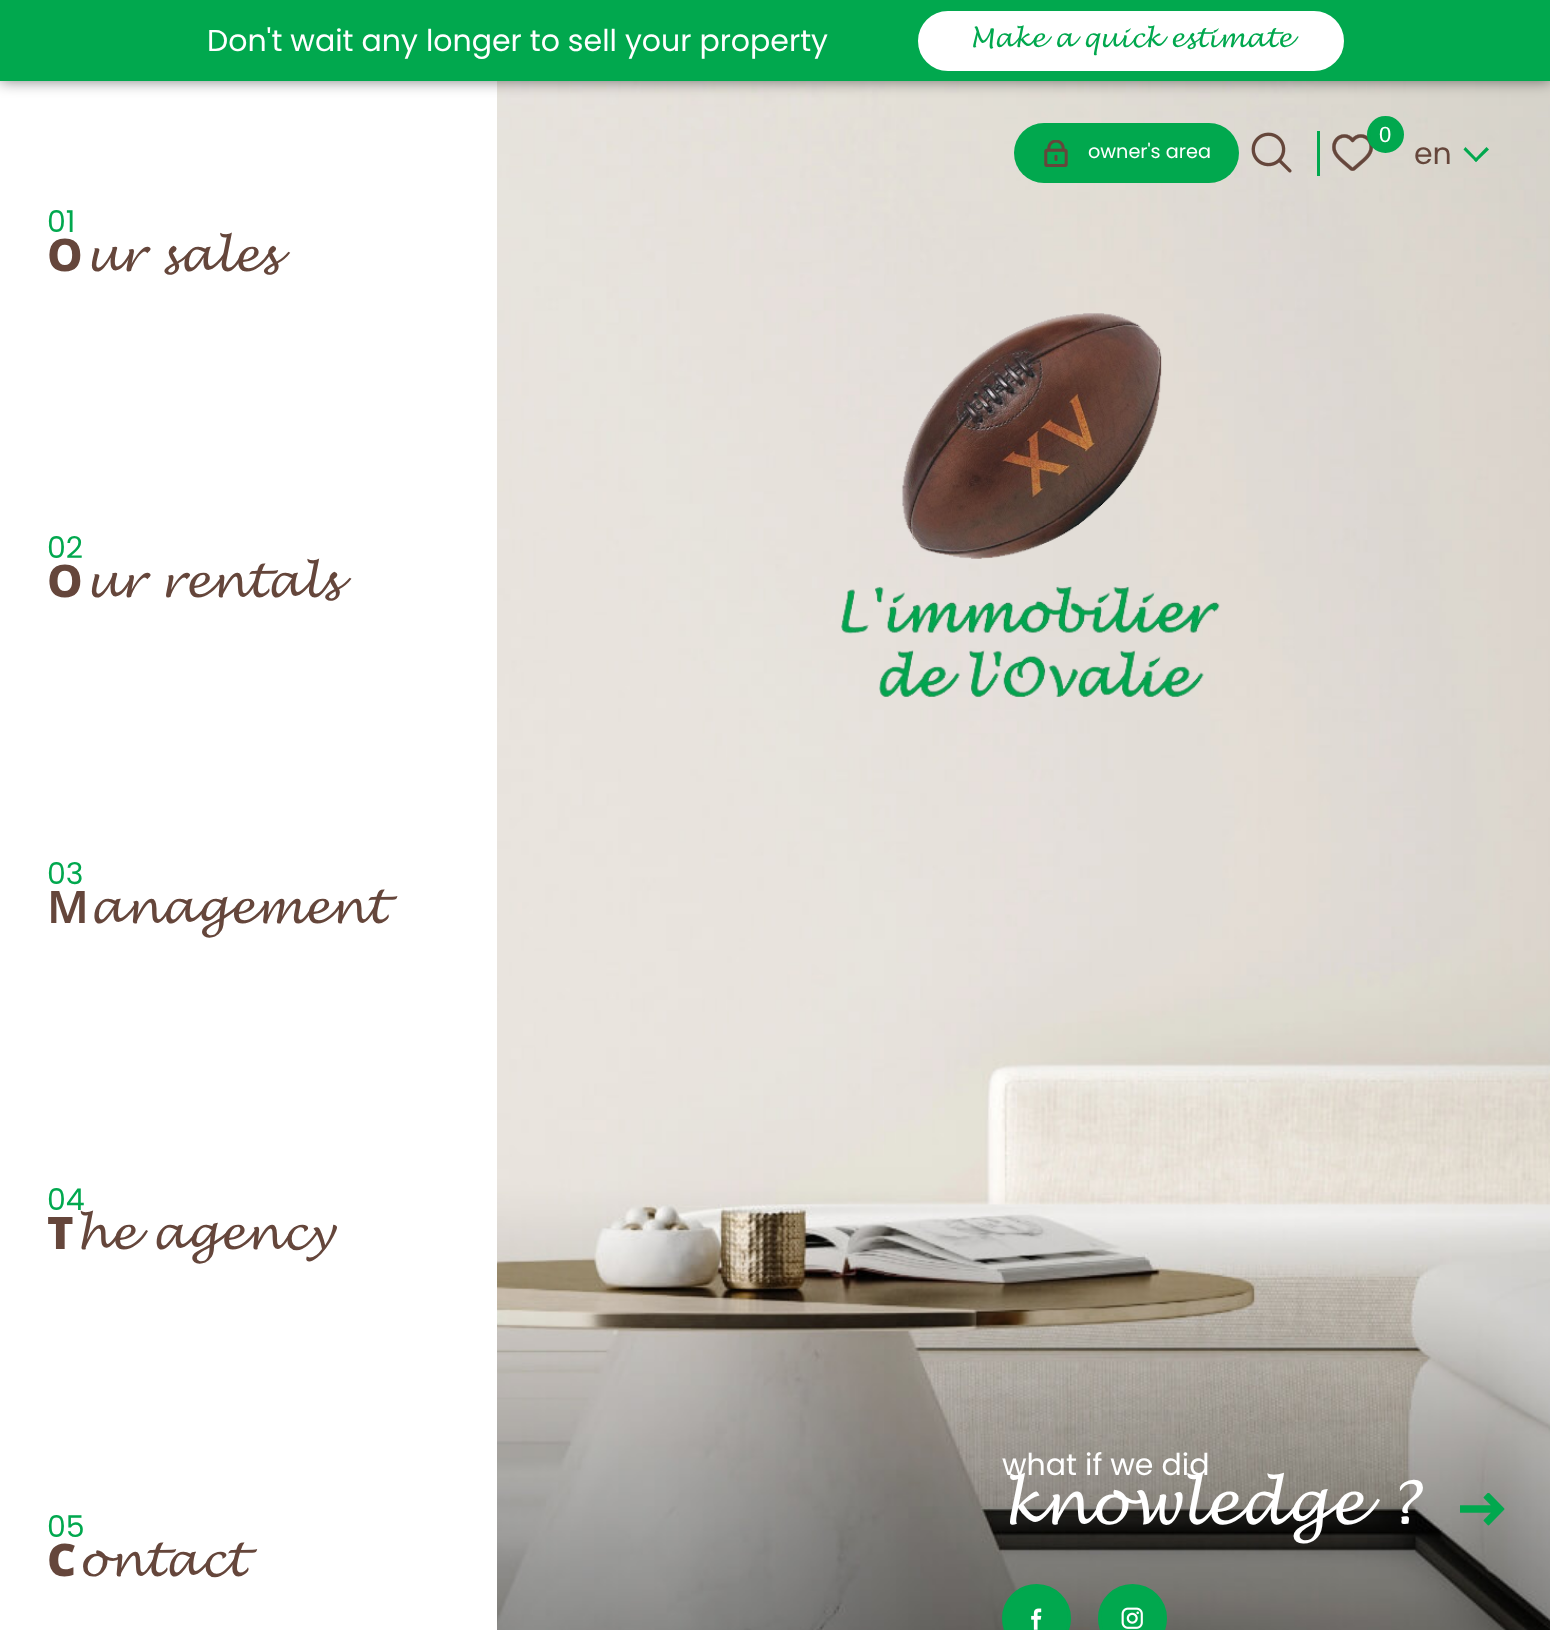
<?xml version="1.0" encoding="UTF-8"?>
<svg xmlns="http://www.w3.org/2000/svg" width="1550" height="1630">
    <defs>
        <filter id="blur1" x="-50%" y="-200%" width="200%" height="500%"><feGaussianBlur stdDeviation="7.5"/></filter>
    </defs>
    <rect width="100%" height="100%" fill="#FFFFFF"/>
    <image x="497" y="81" width="1053" height="1549" href="img_04.png"/>
    <rect x="0" y="0" width="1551" height="81" fill="#000000" fill-opacity="0.5" filter="url(#blur1)"/>
    <rect x="0" y="0" width="1550" height="81" fill="#01A84E"/>
    <text x="207" y="51" font-family="Poppins" font-size="30" fill="#FFFFFF">Don't wait any longer to sell your property</text>
    <rect x="919" y="12" width="424" height="58" rx="29" fill="#FFFFFF" stroke="#FFFFFF" stroke-width="2"/>
    <text x="970" y="47" font-family="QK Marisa" font-size="25.5" fill="#01A84E">Make a quick estimate</text>
    <rect x="1014" y="123" width="225" height="60" rx="30" fill="#01A84E"/>
    <image x="1044" y="140" width="24" height="27" href="img_01.png"/>
    <text x="1088" y="158" font-family="Poppins" font-size="19.25" fill="#FFFFFF">owner's area</text>
    <image x="1251" y="132" width="41" height="41" href="img_02.png"/>
    <rect x="1317" y="131" width="3" height="45" fill="#01A84E"/>
    <image x="1332" y="134" width="41" height="37" href="img_03.png"/>
    <circle cx="1385.5" cy="134.5" r="17" fill="#01A84E" stroke="#01A84E" stroke-width="3"/>
    <text x="1379" y="142" font-family="Liberation Sans" font-size="22" fill="#FFFFFF">0</text>
    <text x="1414" y="164" font-family="Poppins" font-size="30" fill="#65463B">en</text>
    <path d="M 1486.5 147 L 1489 149.5 L 1476 162 L 1474 160 Z" fill="#01A84E"/>
    <path d="M 1465.5 147 L 1478 160 L 1476 162 L 1463.5 149.5 Z" fill="#01A84E"/>
    <text x="47" y="232" font-family="Poppins" font-size="30" fill="#01A84E">01</text>
    <text x="47" y="271" font-family="Noto Sans" font-size="45" font-weight="800" fill="#65463B">O</text>
    <text x="85" y="271" font-family="QK Marisa" font-size="45" fill="#65463B">ur sales</text>
    <text x="47" y="558" font-family="Poppins" font-size="30" fill="#01A84E">02</text>
    <text x="47" y="597" font-family="Noto Sans" font-size="45" font-weight="800" fill="#65463B">O</text>
    <text x="85" y="597" font-family="QK Marisa" font-size="45" fill="#65463B">ur rentals</text>
    <text x="47" y="884" font-family="Poppins" font-size="30" fill="#01A84E">03</text>
    <text x="47" y="923" font-family="Noto Sans" font-size="45" font-weight="600" fill="#65463B">M</text>
    <text x="89" y="923" font-family="QK Marisa" font-size="45" fill="#65463B">anagement</text>
    <text x="47" y="1210" font-family="Poppins" font-size="30" fill="#01A84E">04</text>
    <text x="47" y="1249" font-family="Noto Sans" font-size="45" font-weight="900" fill="#65463B">T</text>
    <text x="76" y="1249" font-family="QK Marisa" font-size="45" fill="#65463B">he agency</text>
    <text x="47" y="1537" font-family="Poppins" font-size="30" fill="#01A84E">05</text>
    <text x="47" y="1576" font-family="Noto Sans" font-size="45" font-weight="900" fill="#65463B">C</text>
    <text x="78" y="1576" font-family="QK Marisa" font-size="45" fill="#65463B">ontact</text>
    <image x="841" y="313" width="379" height="384" href="img_05.png"/>
    <text x="1002" y="1475" font-family="Poppins" font-size="30" fill="#FFFFFF">what if we did</text>
    <text x="1002" y="1524" font-family="QK Marisa" font-size="60" fill="#FFFFFF">knowledge ?</text>
    <image x="1460" y="1493" width="45" height="33" href="img_06.png"/>
    <circle cx="1036.5" cy="1618.5" r="33" fill="#01A84E" stroke="#01A84E" stroke-width="3"/>
    <image x="1031" y="1608" width="11" height="22" href="img_07.png"/>
    <circle cx="1132.5" cy="1618.5" r="33" fill="#01A84E" stroke="#01A84E" stroke-width="3"/>
    <image x="1121" y="1607" width="22" height="22" href="img_08.png"/>
</svg>
